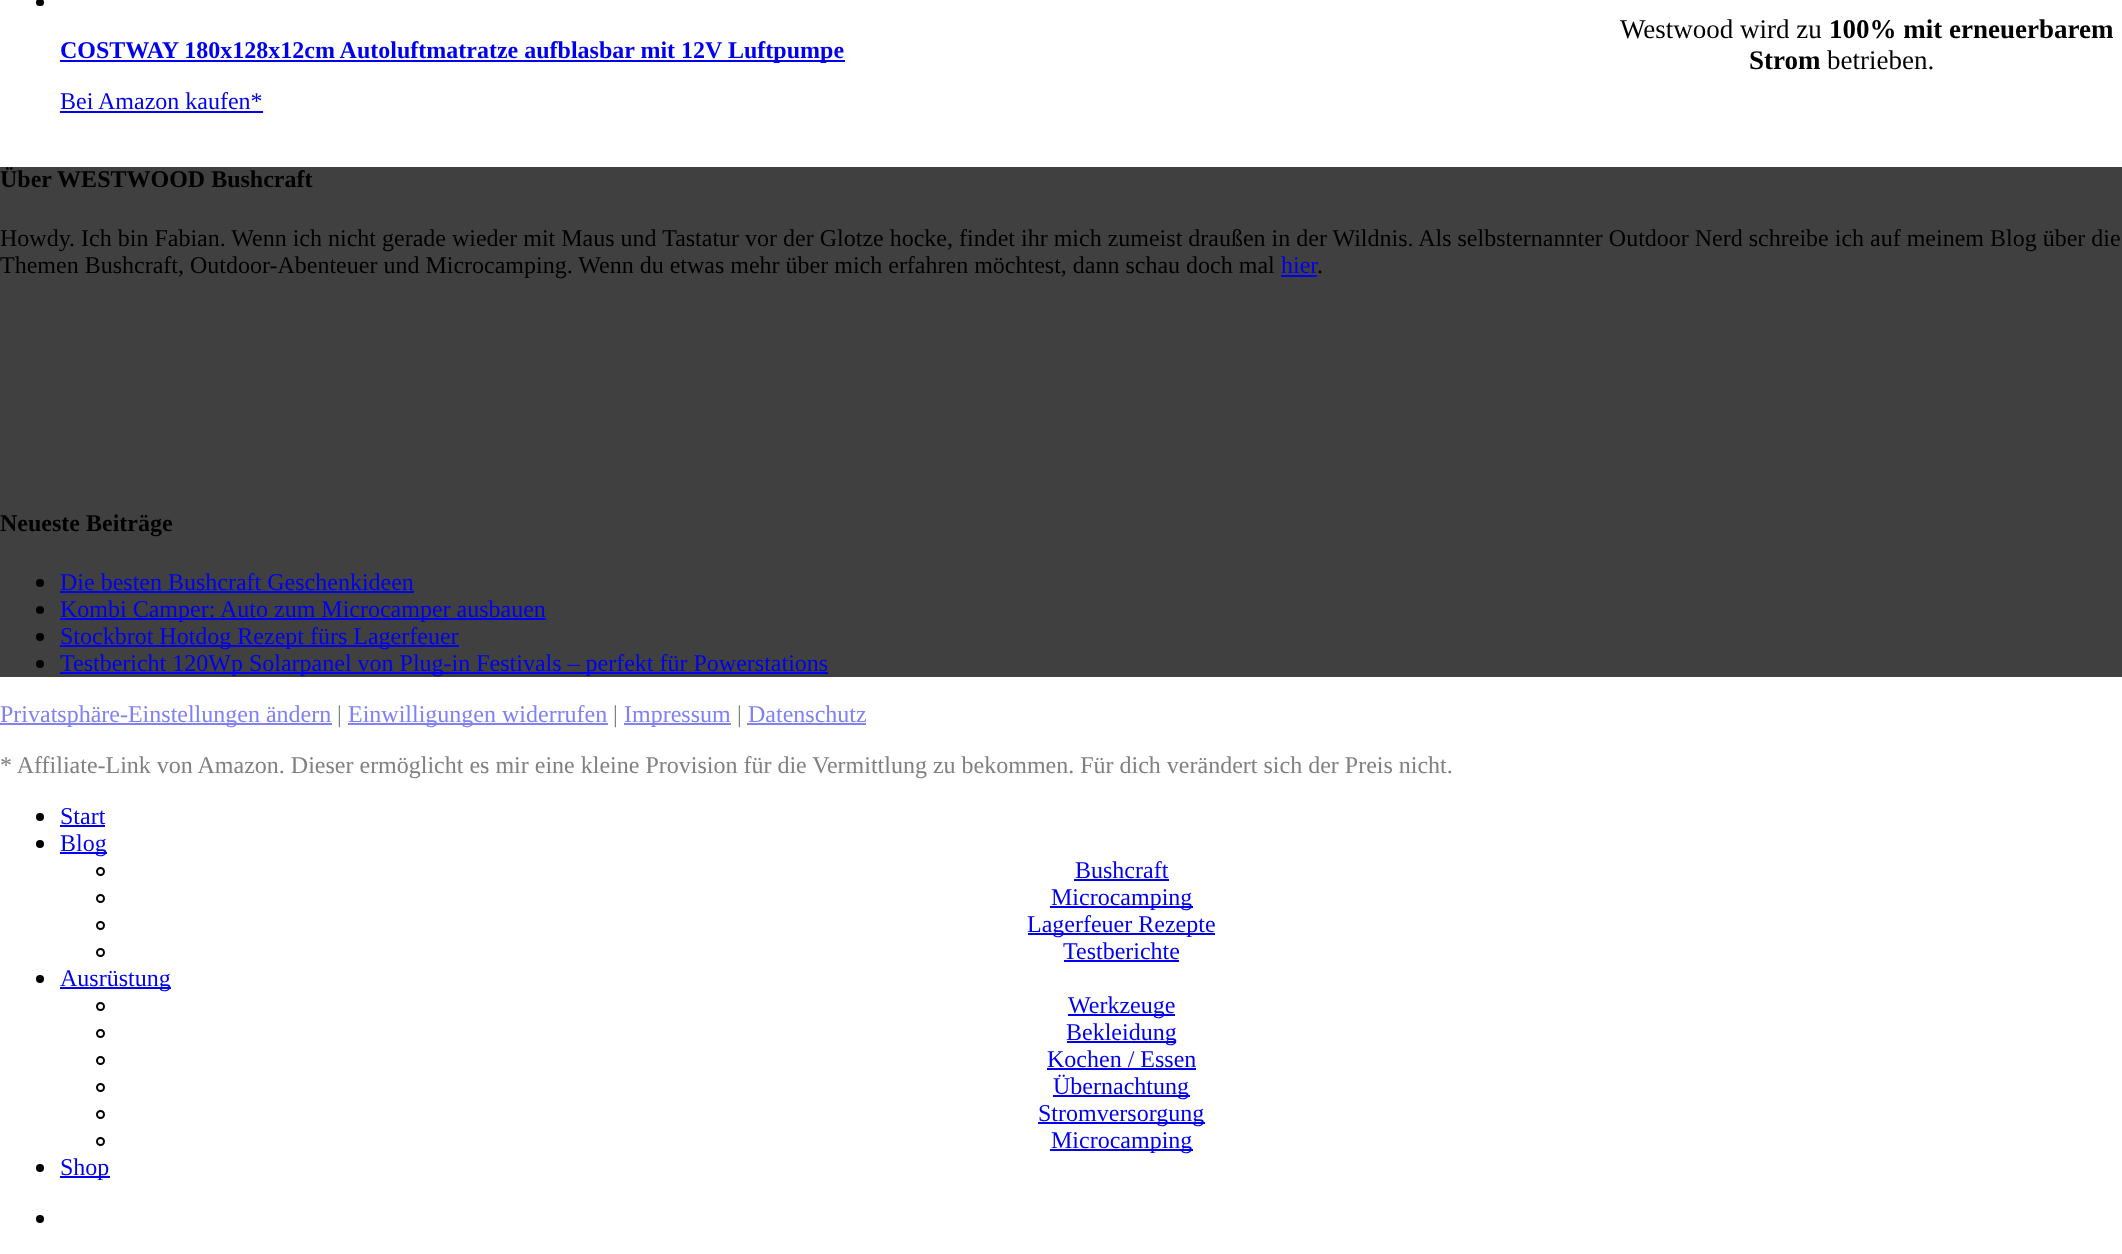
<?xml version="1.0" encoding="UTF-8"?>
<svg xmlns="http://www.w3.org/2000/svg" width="2122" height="1254">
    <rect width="100%" height="100%" fill="#FFFFFF"/>
    <text x="1620" y="38" font-family="Liberation Serif" font-size="27" fill="#000000">Westwood wird zu</text>
    <text x="1829" y="38" font-family="Liberation Serif" font-size="27" font-weight="700" fill="#000000">100% mit erneuerbarem</text>
    <text x="1749" y="69" font-family="Liberation Serif" font-size="27" font-weight="700" fill="#000000">Strom</text>
    <text x="1827" y="69" font-family="Liberation Serif" font-size="27" fill="#000000">betrieben.</text>
    <rect x="0" y="167" width="2122" height="510" fill="#404040"/>
    <text x="0" y="187" font-family="Liberation Serif" font-size="24" font-weight="700" fill="#000000">Über WESTWOOD Bushcraft</text>
    <text font-family="Liberation Serif" font-size="24" fill="#000000">
        <tspan x="0" y="246">Howdy. Ich bin Fabian. Wenn ich nicht gerade wieder mit Maus und Tastatur vor der Glotze hocke, findet ihr mich zumeist draußen in der Wildnis. Als selbsternannter Outdoor Nerd schreibe ich auf meinem Blog über die</tspan>
        <tspan x="0" y="273">Themen Bushcraft, Outdoor-Abenteuer und Microcamping. Wenn du etwas mehr über mich erfahren möchtest, dann schau doch mal</tspan>
    </text>
    <text x="1281" y="273" font-family="Liberation Serif" font-size="24" fill="#0000EE">hier</text>
    <rect x="1281" y="275" width="36" height="2" fill="#0000EE"/>
    <text x="1317" y="273" font-family="Liberation Serif" font-size="24" fill="#000000">.</text>
    <text x="0" y="531" font-family="Liberation Serif" font-size="24" font-weight="700" fill="#000000">Neueste Beiträge</text>
    <circle cx="40" cy="583" r="4" fill="#000000"/>
    <text x="60" y="590" font-family="Liberation Serif" font-size="24" fill="#0000EE">Die besten Bushcraft Geschenkideen</text>
    <rect x="60" y="591" width="354" height="2" fill="#0000EE"/>
    <circle cx="40" cy="610" r="4" fill="#000000"/>
    <rect x="60" y="618" width="486" height="2" fill="#0000EE"/>
    <text x="60" y="617" font-family="Liberation Serif" font-size="24" fill="#0000EE">Kombi Camper: Auto zum Microcamper ausbauen</text>
    <circle cx="40" cy="637" r="4" fill="#000000"/>
    <rect x="60" y="645" width="399" height="2" fill="#0000EE"/>
    <text x="60" y="644" font-family="Liberation Serif" font-size="24" fill="#0000EE">Stockbrot Hotdog Rezept fürs Lagerfeuer</text>
    <circle cx="40" cy="664" r="4" fill="#000000"/>
    <rect x="60" y="672" width="768" height="2" fill="#0000EE"/>
    <text x="60" y="671" font-family="Liberation Serif" font-size="24" fill="#0000EE">Testbericht 120Wp Solarpanel von Plug-in Festivals – perfekt für Powerstations</text>
    <rect x="0" y="723" width="332" height="2" fill="#8080F7"/>
    <text x="0" y="722" font-family="Liberation Serif" font-size="24" fill="#8080F7">Privatsphäre-Einstellungen ändern</text>
    <text x="337" y="722" font-family="Liberation Serif" font-size="24" fill="#808080">|</text>
    <rect x="348" y="723" width="260" height="2" fill="#8080F7"/>
    <text x="348" y="722" font-family="Liberation Serif" font-size="24" fill="#8080F7">Einwilligungen widerrufen</text>
    <text x="613" y="722" font-family="Liberation Serif" font-size="24" fill="#808080">|</text>
    <rect x="624" y="723" width="107" height="2" fill="#8080F7"/>
    <text x="624" y="722" font-family="Liberation Serif" font-size="24" fill="#8080F7">Impressum</text>
    <text x="737" y="722" font-family="Liberation Serif" font-size="24" fill="#808080">|</text>
    <text x="748" y="722" font-family="Liberation Serif" font-size="24" fill="#8080F7">Datenschutz</text>
    <rect x="747" y="723" width="119" height="2" fill="#8080F7"/>
    <text x="0" y="773" font-family="Liberation Serif" font-size="24" fill="#808080">* Affiliate-Link von Amazon. Dieser ermöglicht es mir eine kleine Provision für die Vermittlung zu bekommen. Für dich verändert sich der Preis nicht.</text>
    <rect x="36" y="-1" width="8" height="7" rx="3.5" fill="#000000"/>
    <rect x="60" y="60" width="785" height="2" fill="#0000EE"/>
    <text x="60" y="58" font-family="Liberation Serif" font-size="24" font-weight="700" fill="#0000EE">COSTWAY 180x128x12cm Autoluftmatratze aufblasbar mit 12V Luftpumpe</text>
    <text x="60" y="109" font-family="Liberation Serif" font-size="24" fill="#0000EE">Bei Amazon kaufen*</text>
    <rect x="60" y="111" width="203" height="2" fill="#0000EE"/>
    <circle cx="40" cy="817" r="4" fill="#000000"/>
    <text x="60" y="824" font-family="Liberation Serif" font-size="24" fill="#0000EE">Start</text>
    <rect x="60" y="825" width="45" height="2" fill="#0000EE"/>
    <circle cx="40" cy="844" r="4" fill="#000000"/>
    <rect x="60" y="852" width="47" height="2" fill="#0000EE"/>
    <text x="60" y="851" font-family="Liberation Serif" font-size="24" fill="#0000EE">Blog</text>
    <circle cx="100.5" cy="871.5" r="3.5" fill="none" stroke="#000000" stroke-width="2"/>
    <text x="1075" y="878" font-family="Liberation Serif" font-size="24" fill="#0000EE">Bushcraft</text>
    <rect x="1074" y="879" width="95" height="2" fill="#0000EE"/>
    <circle cx="100.5" cy="898.5" r="3.5" fill="none" stroke="#000000" stroke-width="2"/>
    <rect x="1050" y="906" width="143" height="2" fill="#0000EE"/>
    <text x="1051" y="905" font-family="Liberation Serif" font-size="24" fill="#0000EE">Microcamping</text>
    <circle cx="100.5" cy="925.5" r="3.5" fill="none" stroke="#000000" stroke-width="2"/>
    <rect x="1028" y="933" width="187" height="2" fill="#0000EE"/>
    <text x="1027" y="932" font-family="Liberation Serif" font-size="24" fill="#0000EE">Lagerfeuer Rezepte</text>
    <circle cx="100.5" cy="952.5" r="3.5" fill="none" stroke="#000000" stroke-width="2"/>
    <text x="1063" y="959" font-family="Liberation Serif" font-size="24" fill="#0000EE">Testberichte</text>
    <rect x="1064" y="960" width="115" height="2" fill="#0000EE"/>
    <circle cx="40" cy="979" r="4" fill="#000000"/>
    <rect x="60" y="987" width="111" height="2" fill="#0000EE"/>
    <text x="60" y="986" font-family="Liberation Serif" font-size="24" fill="#0000EE">Ausrüstung</text>
    <circle cx="100.5" cy="1006.5" r="3.5" fill="none" stroke="#000000" stroke-width="2"/>
    <rect x="1068" y="1014" width="107" height="2" fill="#0000EE"/>
    <text x="1068" y="1013" font-family="Liberation Serif" font-size="24" fill="#0000EE">Werkzeuge</text>
    <circle cx="100.5" cy="1033.5" r="3.5" fill="none" stroke="#000000" stroke-width="2"/>
    <rect x="1067" y="1041" width="109" height="2" fill="#0000EE"/>
    <text x="1066" y="1040" font-family="Liberation Serif" font-size="24" fill="#0000EE">Bekleidung</text>
    <circle cx="100.5" cy="1060.5" r="3.5" fill="none" stroke="#000000" stroke-width="2"/>
    <text x="1047" y="1067" font-family="Liberation Serif" font-size="24" fill="#0000EE">Kochen / Essen</text>
    <rect x="1047" y="1068" width="149" height="2" fill="#0000EE"/>
    <circle cx="100.5" cy="1087.5" r="3.5" fill="none" stroke="#000000" stroke-width="2"/>
    <rect x="1053" y="1095" width="137" height="2" fill="#0000EE"/>
    <text x="1053" y="1094" font-family="Liberation Serif" font-size="24" fill="#0000EE">Übernachtung</text>
    <circle cx="100.5" cy="1114.5" r="3.5" fill="none" stroke="#000000" stroke-width="2"/>
    <rect x="1038" y="1122" width="167" height="2" fill="#0000EE"/>
    <text x="1038" y="1121" font-family="Liberation Serif" font-size="24" fill="#0000EE">Stromversorgung</text>
    <circle cx="100.5" cy="1141.5" r="3.5" fill="none" stroke="#000000" stroke-width="2"/>
    <rect x="1050" y="1149" width="143" height="2" fill="#0000EE"/>
    <text x="1051" y="1148" font-family="Liberation Serif" font-size="24" fill="#0000EE">Microcamping</text>
    <circle cx="40" cy="1168" r="4" fill="#000000"/>
    <rect x="60" y="1176" width="50" height="2" fill="#0000EE"/>
    <text x="60" y="1175" font-family="Liberation Serif" font-size="24" fill="#0000EE">Shop</text>
    <circle cx="40" cy="1219" r="4" fill="#000000"/>
</svg>
